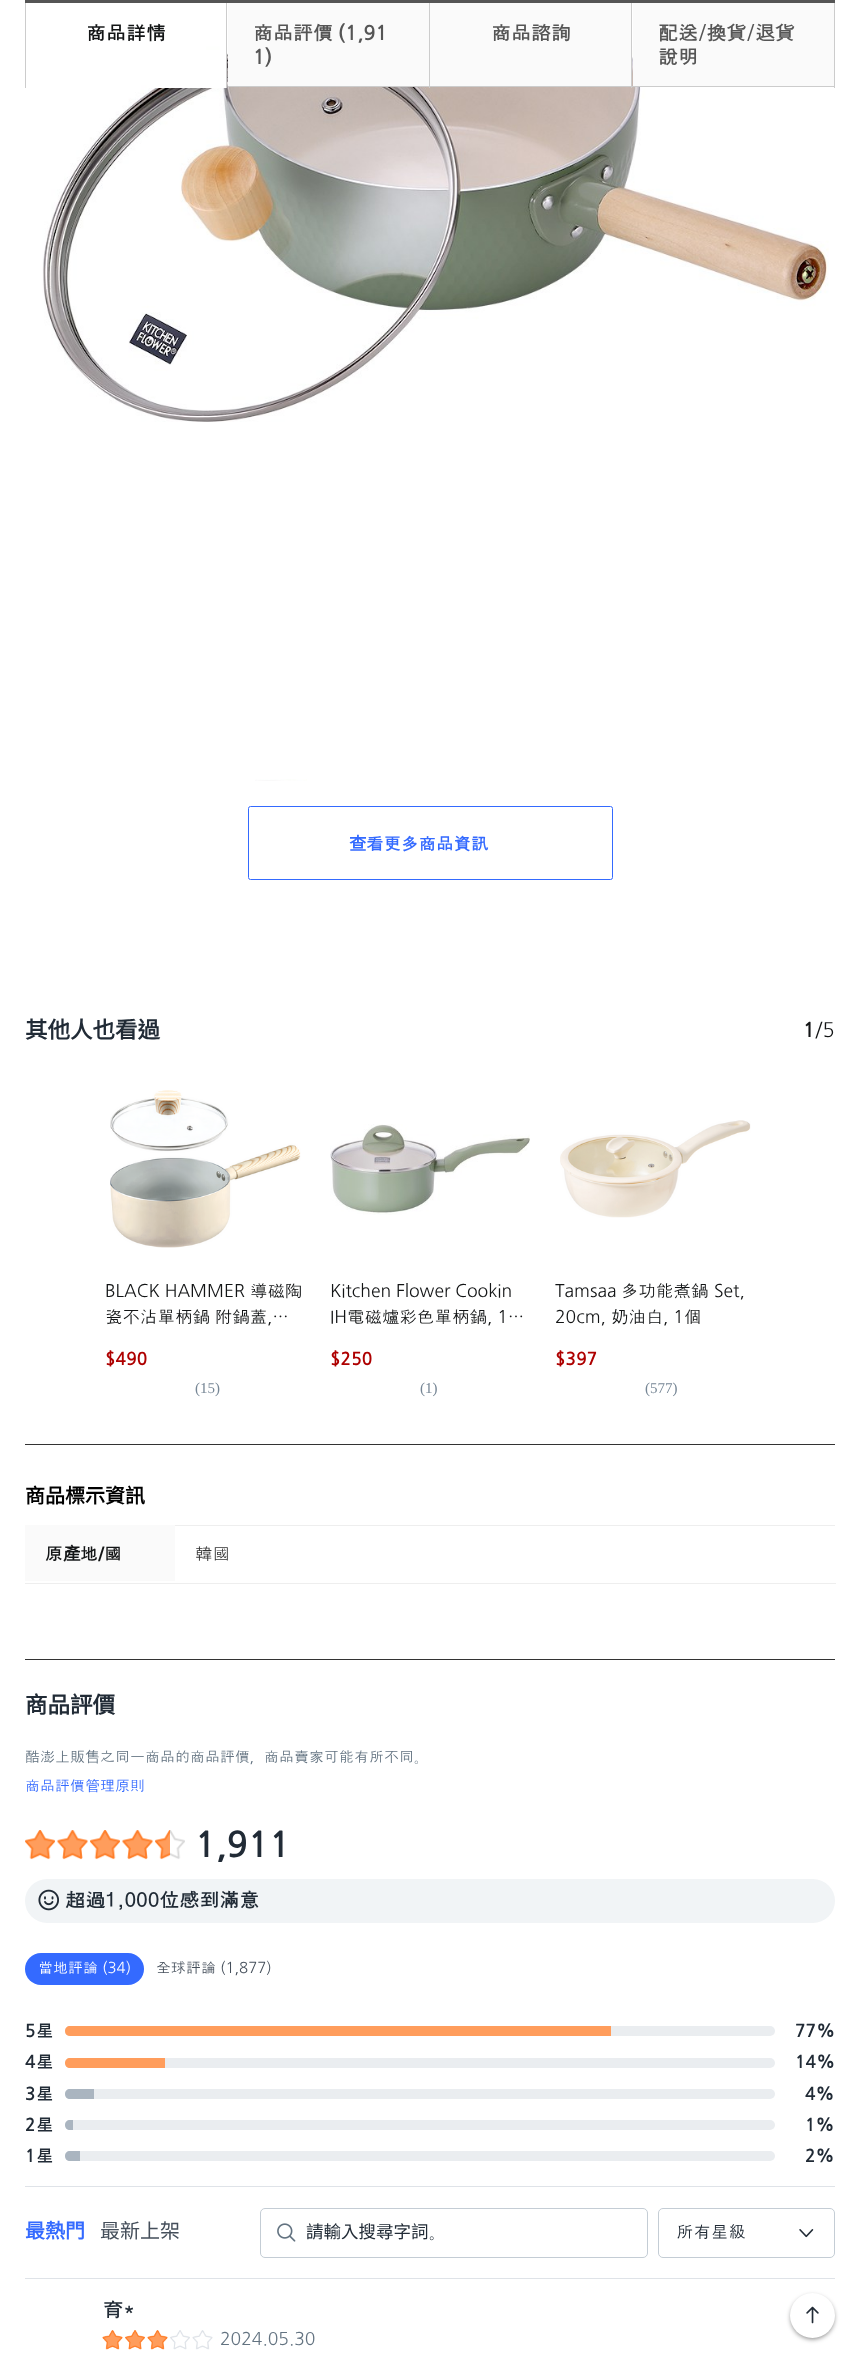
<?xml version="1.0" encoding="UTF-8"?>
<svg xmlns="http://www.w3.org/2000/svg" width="859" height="2374">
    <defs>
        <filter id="blur1" x="-50%" y="-200%" width="200%" height="500%"><feGaussianBlur stdDeviation="2.5"/></filter>
    </defs>
    <rect width="100%" height="100%" fill="#FFFFFF"/>
    <rect x="25" y="0" width="810" height="3" fill="#555555"/>
    <image x="42" y="3" width="787" height="419" href="img_01.png"/>
    <rect x="147" y="53" width="79" height="35" fill="#FFFFFF"/>
    <rect x="226" y="3" width="1" height="85" fill="#CCCCCC"/>
    <rect x="25" y="3" width="1" height="85" fill="#CCCCCC"/>
    <text x="86" y="40" font-family="Dotum" font-size="20" font-weight="700" fill="#131516">商品詳情</text>
    <rect x="228" y="3" width="201" height="83" fill="#FAFAFA"/>
    <rect x="429" y="3" width="1" height="85" fill="#CCCCCC"/>
    <rect x="228" y="86" width="202" height="1" fill="#CCCCCC"/>
    <text x="253" y="40" font-family="Dotum" font-size="20" font-weight="700" fill="#555555">商品評價</text>
    <text x="338" y="40" font-family="NanumGothic" font-size="20" font-weight="700" fill="#555555">(1,91</text>
    <text x="253" y="64" font-family="NanumGothic" font-size="20" font-weight="700" fill="#555555">1)</text>
    <rect x="430" y="3" width="201" height="83" fill="#FAFAFA"/>
    <rect x="631" y="3" width="1" height="85" fill="#CCCCCC"/>
    <rect x="430" y="86" width="203" height="1" fill="#CCCCCC"/>
    <text x="491" y="40" font-family="Dotum" font-size="20" font-weight="700" fill="#555555">商品諮詢</text>
    <rect x="633" y="3" width="201" height="83" fill="#FAFAFA"/>
    <rect x="834" y="3" width="1" height="85" fill="#CCCCCC"/>
    <rect x="633" y="86" width="202" height="1" fill="#CCCCCC"/>
    <text font-family="Dotum" font-size="20" font-weight="700" fill="#555555">
        <tspan x="658" y="40">配送/換貨/退貨</tspan>
        <tspan x="658" y="64">說明</tspan>
    </text>
    <image x="255" y="779" width="52" height="2" href="img_02.png"/>
    <rect x="248.5" y="806.5" width="364" height="73" rx="2" fill="none" stroke="#346AFF"/>
    <text x="349" y="850" font-family="Noto Sans CJK TC" font-size="17.5" font-weight="700" fill="#346AFF">查</text>
    <text x="366" y="850" font-family="Dotum" font-size="17.5" font-weight="700" fill="#346AFF">看更多商品資訊</text>
    <text x="25" y="1038" font-family="Noto Sans CJK TC" font-size="22.5" font-weight="700" fill="#212B36">其他人也看過</text>
    <text x="803" y="1037" font-family="NanumGothic" font-size="20" font-weight="700" fill="#131516">1</text>
    <text x="815" y="1037" font-family="NanumGothic" font-size="20" fill="#131516">/5</text>
    <image x="110" y="1090" width="191" height="158" href="img_03.png"/>
    <text x="105" y="1297" font-family="NanumGothic" font-size="17.5" fill="#131516">BLACK HAMMER</text>
    <text x="250" y="1297" font-family="Dotum" font-size="17.5" fill="#131516">導磁陶</text>
    <text x="105" y="1323" word-spacing="-1" font-family="Dotum" font-size="17.5" fill="#131516">瓷不沾單柄鍋 附鍋蓋</text>
    <text x="267" y="1323" font-family="NanumGothic" font-size="17.5" fill="#131516">,…</text>
    <text x="105" y="1365" font-family="NanumGothic" font-size="17.5" font-weight="700" fill="#AE0000">$490</text>
    <text x="195" y="1393" font-family="Liberation Serif" font-size="15" fill="#768695">(15)</text>
    <image x="330" y="1124" width="200" height="91" href="img_04.png"/>
    <text font-family="NanumGothic" font-size="17.5" fill="#131516">
        <tspan x="330" y="1297">Kitchen Flower Cookin</tspan>
        <tspan x="330" y="1323">IH</tspan>
    </text>
    <text x="347" y="1323" font-family="Dotum" font-size="17.5" fill="#131516">電磁爐彩色單柄鍋</text>
    <text x="487" y="1323" font-family="NanumGothic" font-size="17.5" fill="#131516">, 1…</text>
    <text x="330" y="1365" font-family="NanumGothic" font-size="17.5" font-weight="700" fill="#AE0000">$250</text>
    <text x="420" y="1393" font-family="Liberation Serif" font-size="15" fill="#768695">(1)</text>
    <image x="560" y="1120" width="191" height="98" href="img_05.png"/>
    <text x="555" y="1297" font-family="NanumGothic" font-size="17.5" fill="#131516">Tamsaa</text>
    <text x="621" y="1297" font-family="Dotum" font-size="17.5" fill="#131516">多功能煮鍋</text>
    <text x="714" y="1297" font-family="NanumGothic" font-size="17.5" fill="#131516">Set,</text>
    <text x="555" y="1323" font-family="NanumGothic" font-size="17.5" fill="#131516">20cm,</text>
    <text x="611" y="1323" font-family="Dotum" font-size="17.5" fill="#131516">奶油白</text>
    <text x="663" y="1323" font-family="NanumGothic" font-size="17.5" fill="#131516">, 1</text>
    <text x="684" y="1323" font-family="Dotum" font-size="17.5" fill="#131516">個</text>
    <text x="555" y="1365" font-family="NanumGothic" font-size="17.5" font-weight="700" fill="#AE0000">$397</text>
    <text x="645" y="1393" font-family="Liberation Serif" font-size="15" fill="#768695">(577)</text>
    <rect x="25" y="1444" width="810" height="1" fill="#333333"/>
    <text x="25" y="1503" font-family="Noto Sans CJK TC" font-size="20" font-weight="700" fill="#000000">商品標示資訊</text>
    <rect x="175" y="1525" width="660" height="1" fill="#EEEEEE"/>
    <rect x="25" y="1583" width="811" height="1" fill="#EEEEEE"/>
    <rect x="25" y="1525" width="150" height="56" fill="#FAFAFA"/>
    <text x="45" y="1560" font-family="Dotum" font-size="17.5" font-weight="700" fill="#131516">原</text>
    <text x="63" y="1560" font-family="Noto Sans CJK TC" font-size="17.5" font-weight="700" fill="#131516">產</text>
    <text x="80" y="1560" font-family="Dotum" font-size="17.5" font-weight="700" fill="#131516">地</text>
    <text x="98" y="1560" font-family="NanumGothic" font-size="17.5" font-weight="700" fill="#131516">/</text>
    <text x="104" y="1560" font-family="Dotum" font-size="17.5" font-weight="700" fill="#131516">國</text>
    <text x="195" y="1560" font-family="Dotum" font-size="17.5" fill="#333333">韓國</text>
    <rect x="25" y="1659" width="810" height="1" fill="#333333"/>
    <text x="25" y="1713" font-family="Noto Sans CJK TC" font-size="22.5" font-weight="700" fill="#212B36">商品評價</text>
    <text x="25" y="1762" font-family="Dotum" font-size="15" fill="#637381">酷澎上販售之同一商品的商品評價</text>
    <text x="250" y="1762" font-family="NanumGothic" font-size="15" fill="#637381">，</text>
    <text x="264" y="1762" font-family="Dotum" font-size="15" fill="#637381">商品賣家可能有所不同</text>
    <text x="414" y="1762" font-family="NanumGothic" font-size="15" fill="#637381">。</text>
    <text x="25" y="1791" font-family="Dotum" font-size="15" fill="#346AFF">商品評價管理原則</text>
    <image x="25" y="1830" width="30" height="30" href="img_06.png"/>
    <image x="57" y="1830" width="31" height="30" href="img_07.png"/>
    <image x="90" y="1830" width="30" height="30" href="img_06.png"/>
    <image x="122" y="1830" width="31" height="30" href="img_07.png"/>
    <image x="155" y="1830" width="30" height="30" href="img_08.png"/>
    <text x="195" y="1857" font-family="NanumGothic" font-size="35" font-weight="700" fill="#212B36">1,911</text>
    <rect x="25" y="1879" width="810" height="44" rx="22" fill="#F1F4F6"/>
    <image x="38" y="1889" width="21" height="22" href="img_09.png"/>
    <text x="65" y="1907" font-family="Dotum" font-size="20" font-weight="700" fill="#212B36">超過1,000位感到滿意</text>
    <rect x="25" y="1953" width="119" height="32" rx="16" fill="#346AFF"/>
    <text x="38" y="1973" font-family="Dotum" font-size="15" fill="#FFFFFF">當地評論</text>
    <text x="102" y="1973" font-family="NanumGothic" font-size="15" fill="#FFFFFF">(34)</text>
    <text x="156" y="1973" font-family="Dotum" font-size="15" fill="#454F5B">全球評論</text>
    <text x="220" y="1973" font-family="NanumGothic" font-size="15" fill="#454F5B">(1,877)</text>
    <text x="25" y="2037" font-family="NanumGothic" font-size="17.5" font-weight="700" fill="#212B36">5</text>
    <text x="36" y="2037" font-family="Dotum" font-size="17.5" font-weight="700" fill="#212B36">星</text>
    <rect x="65" y="2026" width="710" height="10" rx="5" fill="#EAEDF0"/>
    <path d="M 70 2026 H 611 V 2036 H 70 C 67 2036 65 2034 65 2031 C 65 2028 67 2026 70 2026 Z" fill="#FF9D5C"/>
    <text x="795" y="2037" font-family="NanumGothic" font-size="17.5" font-weight="700" fill="#212B36">77%</text>
    <text x="25" y="2068" font-family="NanumGothic" font-size="17.5" font-weight="700" fill="#212B36">4</text>
    <text x="36" y="2068" font-family="Dotum" font-size="17.5" font-weight="700" fill="#212B36">星</text>
    <rect x="65" y="2058" width="710" height="10" rx="5" fill="#EAEDF0"/>
    <path d="M 70 2058 H 165 V 2068 H 70 C 67 2068 65 2066 65 2063 C 65 2060 67 2058 70 2058 Z" fill="#FF9D5C"/>
    <text x="795" y="2068" font-family="NanumGothic" font-size="17.5" font-weight="700" fill="#212B36">14%</text>
    <text x="25" y="2100" font-family="NanumGothic" font-size="17.5" font-weight="700" fill="#212B36">3</text>
    <text x="36" y="2100" font-family="Dotum" font-size="17.5" font-weight="700" fill="#212B36">星</text>
    <rect x="65" y="2089" width="710" height="10" rx="5" fill="#EAEDF0"/>
    <path d="M 70 2089 H 94 V 2099 H 70 C 67 2099 65 2097 65 2094 C 65 2091 67 2089 70 2089 Z" fill="#AAB5C0"/>
    <text x="805" y="2100" font-family="NanumGothic" font-size="17.5" font-weight="700" fill="#212B36">4%</text>
    <text x="25" y="2131" font-family="NanumGothic" font-size="17.5" font-weight="700" fill="#212B36">2</text>
    <text x="36" y="2131" font-family="Dotum" font-size="17.5" font-weight="700" fill="#212B36">星</text>
    <rect x="65" y="2120" width="710" height="10" rx="5" fill="#EAEDF0"/>
    <path d="M 70 2120 H 73 V 2130 H 70 C 67 2130 65 2128 65 2125 C 65 2122 67 2120 70 2120 Z" fill="#AAB5C0"/>
    <text x="805" y="2131" font-family="NanumGothic" font-size="17.5" font-weight="700" fill="#212B36">1%</text>
    <text x="25" y="2162" font-family="NanumGothic" font-size="17.5" font-weight="700" fill="#212B36">1</text>
    <text x="36" y="2162" font-family="Dotum" font-size="17.5" font-weight="700" fill="#212B36">星</text>
    <rect x="65" y="2151" width="710" height="10" rx="5" fill="#EAEDF0"/>
    <path d="M 70 2151 H 80 V 2161 H 70 C 67 2161 65 2159 65 2156 C 65 2153 67 2151 70 2151 Z" fill="#AAB5C0"/>
    <text x="805" y="2162" font-family="NanumGothic" font-size="17.5" font-weight="700" fill="#212B36">2%</text>
    <rect x="25" y="2186" width="810" height="1" fill="#DFE3E8"/>
    <text x="25" y="2238" font-family="Noto Sans CJK TC" font-size="20" font-weight="700" fill="#346AFF">最熱門</text>
    <text x="100" y="2238" font-family="Noto Sans CJK TC" font-size="20" fill="#454F5B">最新上架</text>
    <rect x="260.5" y="2208.5" width="387" height="49" rx="4.5" fill="none" stroke="#C4CDD5"/>
    <image x="277" y="2223" width="19" height="19" href="img_10.png"/>
    <text x="306" y="2238" font-family="Noto Sans CJK TC" font-size="17.5" fill="#212B36">請輸入搜尋字詞</text>
    <text x="429" y="2238" font-family="NanumGothic" font-size="17.5" fill="#212B36">。</text>
    <rect x="658.5" y="2208.5" width="176" height="49" rx="4.5" fill="none" stroke="#C4CDD5"/>
    <text x="676" y="2238" font-family="Dotum" font-size="17.5" fill="#212B36">所有星級</text>
    <image x="799" y="2229" width="15" height="9" href="img_11.png"/>
    <rect x="25" y="2278" width="810" height="1" fill="#DFE3E8"/>
    <text x="103" y="2317" font-family="Dotum" font-size="20" font-weight="700" fill="#212B36">育*</text>
    <image x="102" y="2330" width="21" height="20" href="img_12.png"/>
    <image x="125" y="2330" width="20" height="20" href="img_13.png"/>
    <image x="147" y="2330" width="21" height="20" href="img_12.png"/>
    <image x="170" y="2330" width="20" height="20" href="img_14.png"/>
    <image x="192" y="2330" width="21" height="20" href="img_15.png"/>
    <text x="220" y="2345" font-family="NanumGothic" font-size="17.5" fill="#637381">2024.05.30</text>
    <rect x="791" y="2296" width="43" height="43" rx="21.5" fill="#000000" fill-opacity="0.5" filter="url(#blur1)"/>
    <circle cx="812.5" cy="2315.5" r="22.5" fill="#FFFFFF"/>
    <image x="806" y="2306" width="13" height="18" href="img_16.png"/>
</svg>
